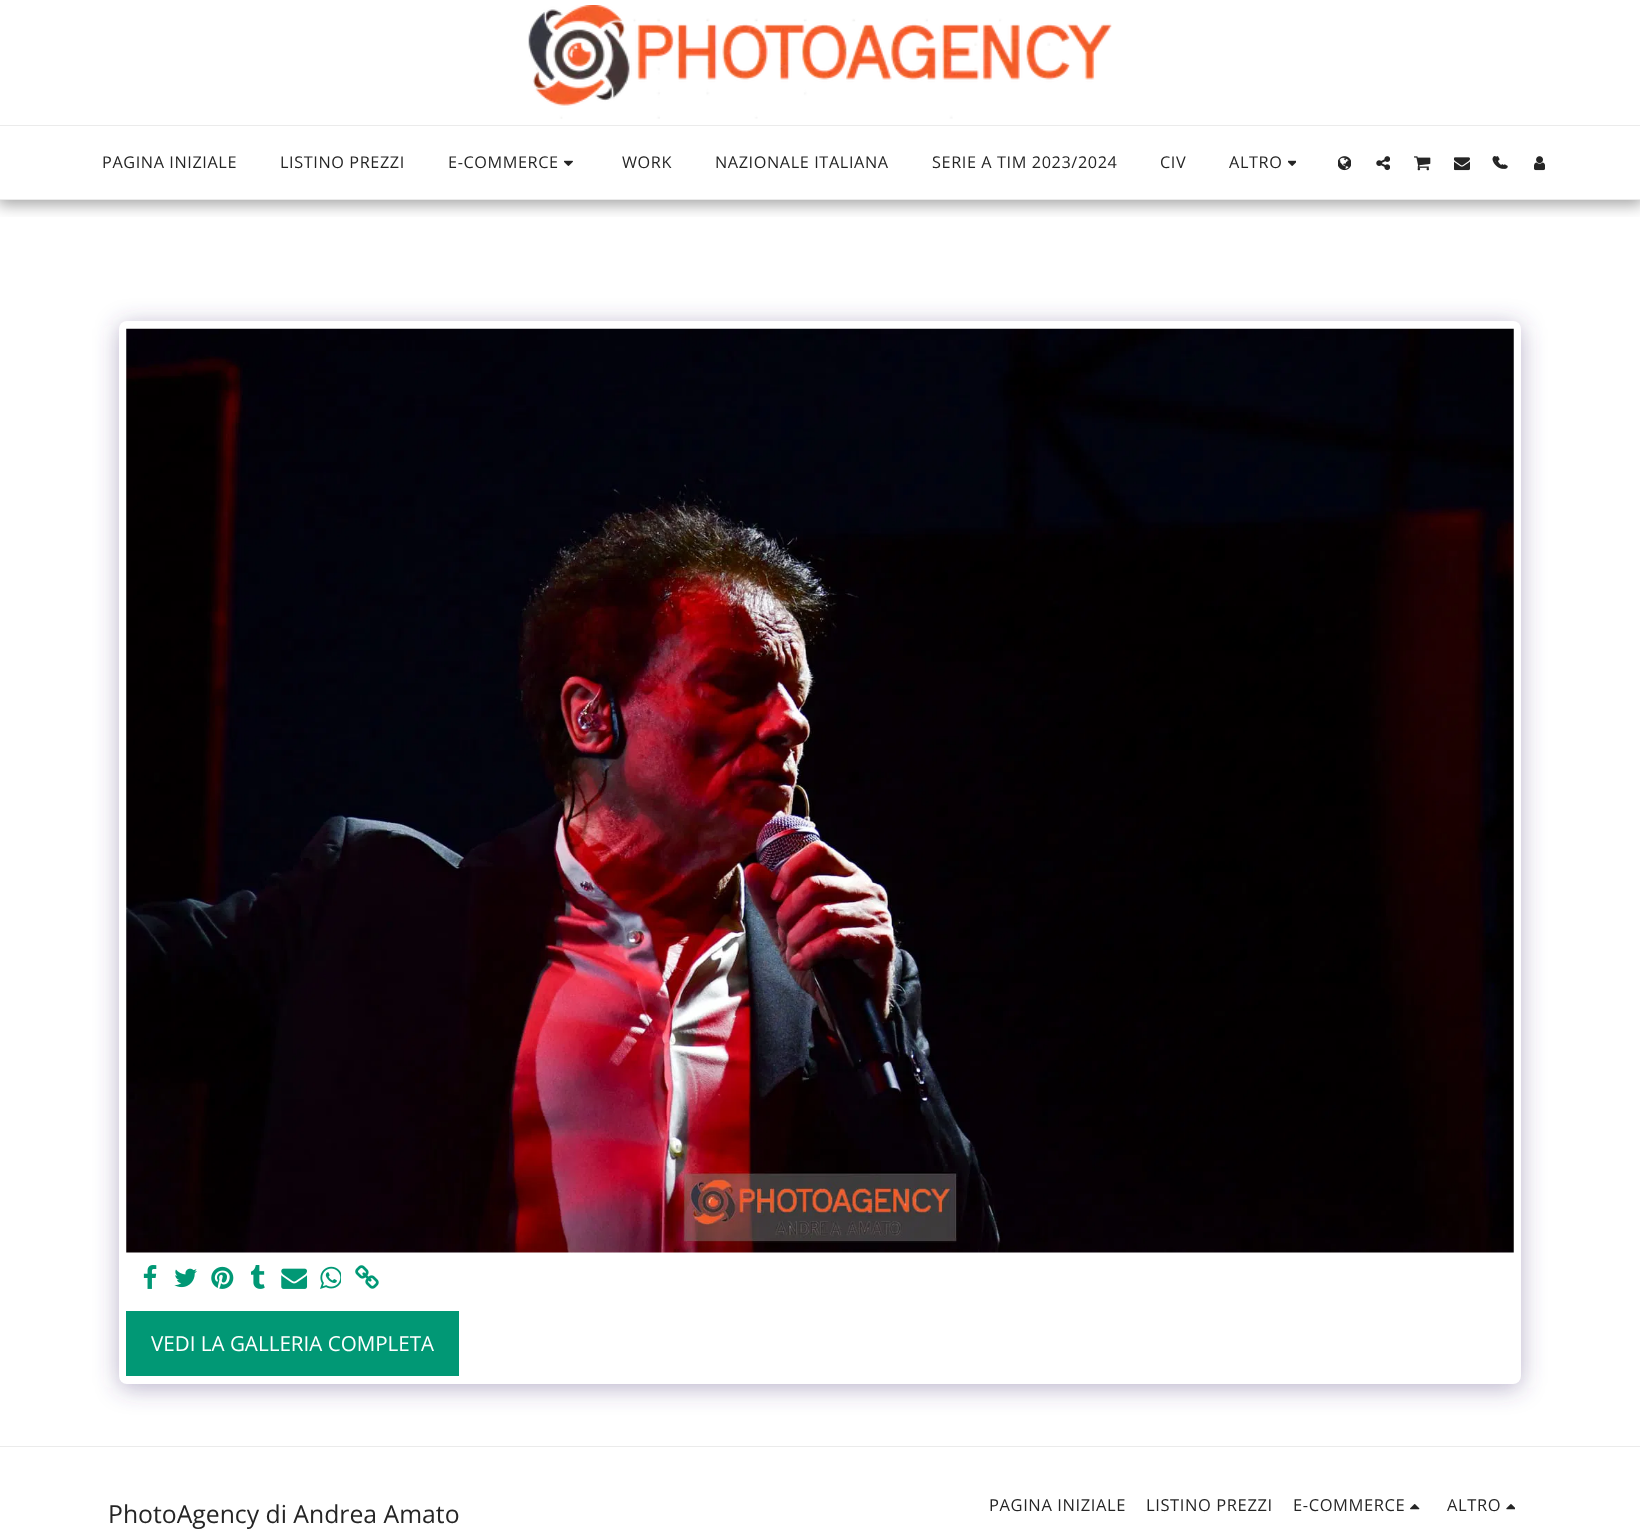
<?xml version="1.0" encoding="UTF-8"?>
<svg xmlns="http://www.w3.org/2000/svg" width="1640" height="1539">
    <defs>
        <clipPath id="clip1"><rect x="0" y="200" width="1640" height="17"/></clipPath>
        <filter id="blur1" x="-50%" y="-200%" width="200%" height="500%"><feGaussianBlur stdDeviation="7.5"/></filter>
        <filter id="blur2" x="-50%" y="-200%" width="200%" height="500%"><feGaussianBlur stdDeviation="12.5"/></filter>
    </defs>
    <rect width="100%" height="100%" fill="#FFFFFF"/>
    <g clip-path="url(#clip1)">
        <rect x="-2" y="0" width="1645" height="205" fill="#000000" fill-opacity="0.35" filter="url(#blur1)"/>
    </g>
    <rect x="0" y="199" width="1640" height="1" fill="#EBEBEB"/>
    <image x="528" y="5" width="584" height="114" href="img_01.png"/>
    <rect x="0" y="125" width="1640" height="1" fill="#EBEBEB"/>
    <text x="102" y="168" font-family="Open Sans" font-size="16.25" letter-spacing="0.6" fill="#252525">PAGINA INIZIALE</text>
    <text x="280" y="168" font-family="Open Sans" font-size="16.25" letter-spacing="0.6" fill="#252525">LISTINO PREZZI</text>
    <text x="448" y="168" font-family="Open Sans" font-size="16.25" letter-spacing="0.6" fill="#252525">E-COMMERCE</text>
    <image x="564" y="160" width="9" height="6" href="img_02.png"/>
    <text x="622" y="168" font-family="Open Sans" font-size="16.25" letter-spacing="0.6" fill="#252525">WORK</text>
    <text x="715" y="168" font-family="Open Sans" font-size="16.25" letter-spacing="0.6" fill="#252525">NAZIONALE ITALIANA</text>
    <text x="932" y="168" font-family="Open Sans" font-size="16.25" letter-spacing="0.6" fill="#252525">SERIE A TIM 2023/2024</text>
    <text x="1160" y="168" font-family="Open Sans" font-size="16.25" letter-spacing="0.6" fill="#252525">CIV</text>
    <text x="1229" y="168" font-family="Open Sans" font-size="16.25" letter-spacing="0.6" fill="#252525">ALTRO</text>
    <image x="1288" y="160" width="8" height="6" href="img_03.png"/>
    <image x="1338" y="156" width="13" height="15" href="img_04.png"/>
    <image x="1376" y="156" width="14" height="15" href="img_05.png"/>
    <image x="1414" y="156" width="17" height="15" href="img_06.png"/>
    <image x="1454" y="157" width="16" height="14" href="img_07.png"/>
    <image x="1495" y="156" width="13" height="13" href="img_08.png"/>
    <image x="1492" y="156" width="12" height="13" href="img_09.png"/>
    <image x="1534" y="156" width="11" height="15" href="img_10.png"/>
    <rect x="119" y="325" width="1402" height="1063" rx="8" fill="#4D3F7A" fill-opacity="0.4" filter="url(#blur2)"/>
    <rect x="119" y="321" width="1402" height="1063" rx="8" fill="#FFFFFF"/>
    <image x="126" y="328" width="1388" height="925" href="img_11.png"/>
    <image x="143" y="1265" width="14" height="24" href="img_12.png"/>
    <image x="174" y="1268" width="23" height="20" href="img_13.png"/>
    <image x="211" y="1266" width="23" height="23" href="img_14.png"/>
    <image x="250" y="1265" width="15" height="24" href="img_15.png"/>
    <image x="281" y="1268" width="27" height="21" href="img_16.png"/>
    <image x="320" y="1266" width="21" height="23" href="img_17.png"/>
    <image x="355" y="1265" width="24" height="24" href="img_18.png"/>
    <rect x="126" y="1311" width="333" height="65" fill="#019875"/>
    <text x="151" y="1351" font-family="Open Sans" font-size="20.6" fill="#FFFFFF">VEDI LA GALLERIA COMPLETA</text>
    <rect x="0" y="1446" width="1640" height="1" fill="#EBEBEB"/>
    <text x="108" y="1523" font-family="Open Sans" font-size="24.75" fill="#252525">PhotoAgency di Andrea Amato</text>
    <text x="989" y="1511" font-family="Open Sans" font-size="16.5" letter-spacing="0.6" fill="#252525">PAGINA INIZIALE</text>
    <text x="1146" y="1511" font-family="Open Sans" font-size="16.5" letter-spacing="0.6" fill="#252525">LISTINO PREZZI</text>
    <text x="1293" y="1511" font-family="Open Sans" font-size="16.5" letter-spacing="0.6" fill="#252525">E-COMMERCE</text>
    <image x="1410" y="1504" width="10" height="6" href="img_19.png"/>
    <text x="1447" y="1511" font-family="Open Sans" font-size="16.5" letter-spacing="0.6" fill="#252525">ALTRO</text>
    <image x="1506" y="1504" width="9" height="6" href="img_20.png"/>
</svg>
